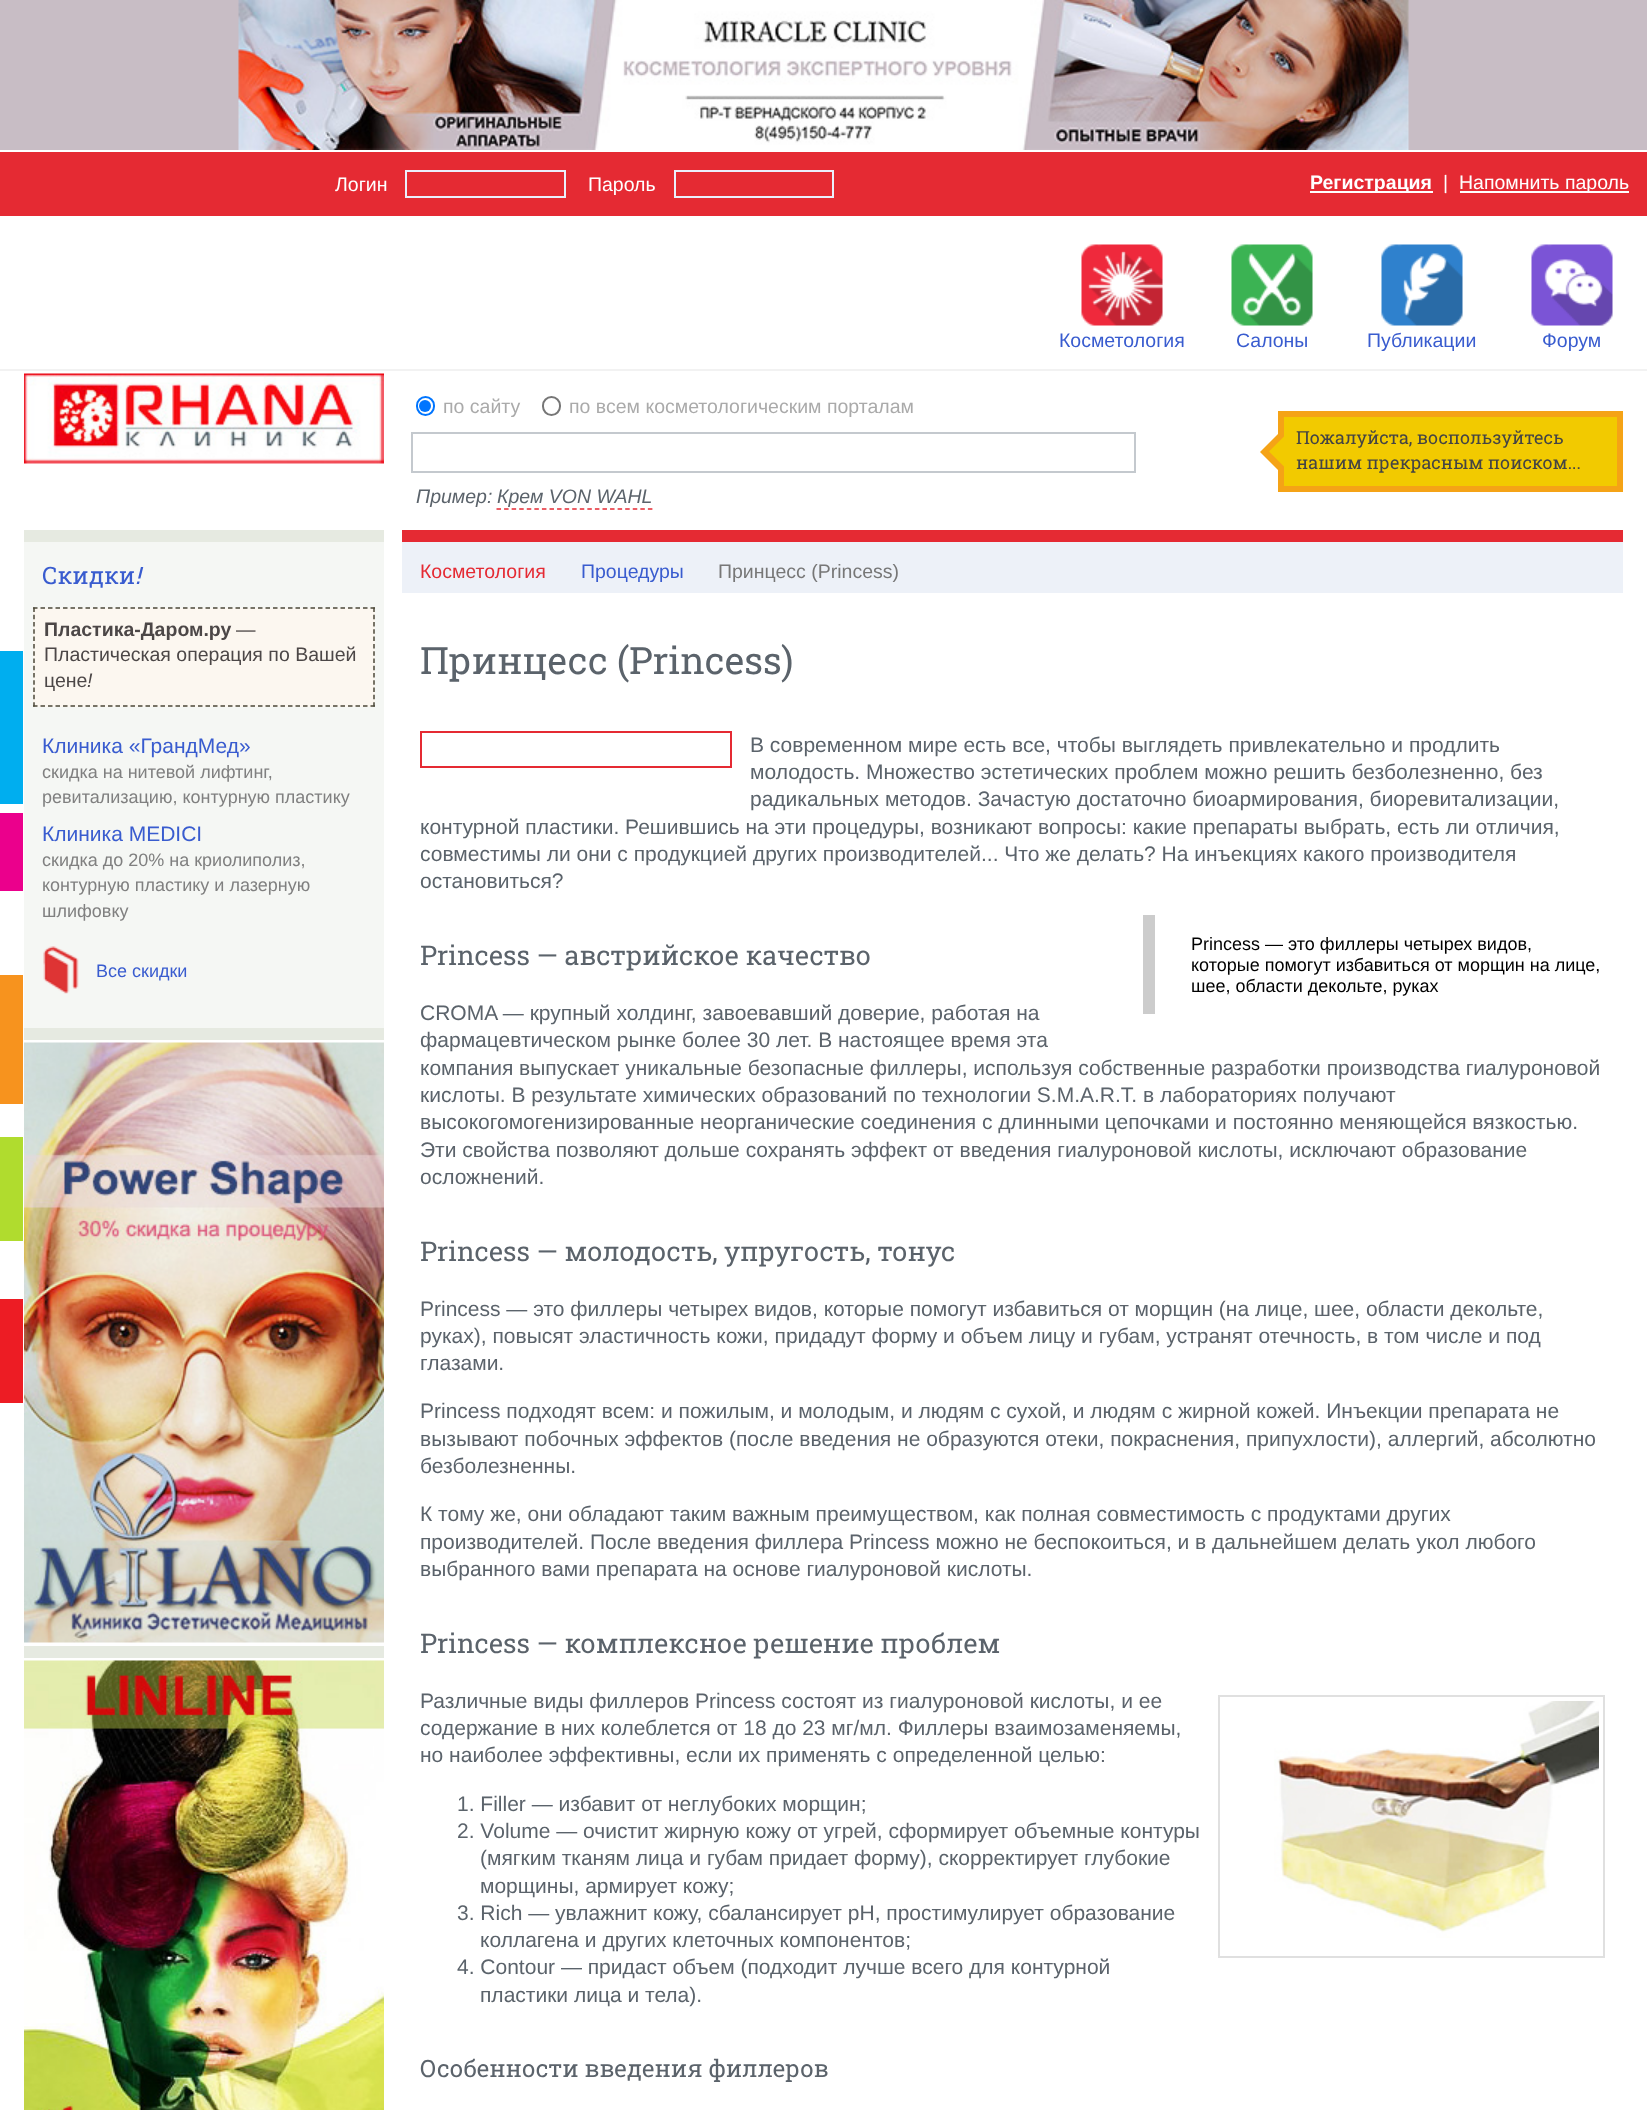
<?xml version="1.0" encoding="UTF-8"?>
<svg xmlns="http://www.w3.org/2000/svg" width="1647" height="2110">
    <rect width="100%" height="100%" fill="#FFFFFF"/>
    <rect x="0" y="0" width="1647" height="150" fill="#C8BDC5"/>
    <image x="238" y="0" width="1171" height="150" href="img_01.png"/>
    <rect x="0" y="152" width="1647" height="64" fill="#E52A33"/>
    <text x="335" y="191" font-family="Liberation Sans" font-size="19.5" fill="#FFFFFF">Логин</text>
    <rect x="406" y="171" width="159" height="26" fill="none" stroke="#EBEFFC" stroke-width="2"/>
    <text x="588" y="191" font-family="Liberation Sans" font-size="19.5" fill="#FFFFFF">Пароль</text>
    <rect x="675" y="171" width="158" height="26" fill="none" stroke="#EBEFFC" stroke-width="2"/>
    <rect x="1310" y="191" width="123" height="2" fill="#FFFFFF"/>
    <text x="1310" y="189" font-family="Liberation Sans" font-size="19.5" font-weight="700" fill="#FFFFFF">Регистрация</text>
    <text x="1443" y="189" font-family="Liberation Sans" font-size="19.5" fill="#FFFFFF">|</text>
    <rect x="1460" y="191" width="169" height="2" fill="#FFFFFF"/>
    <text x="1459" y="189" font-family="Liberation Sans" font-size="19.5" fill="#FFFFFF">Напомнить пароль</text>
    <rect x="0" y="369" width="1647" height="2" fill="#F2F2F2"/>
    <image x="1081" y="244" width="82" height="82" href="img_02.png"/>
    <text x="1059" y="347" font-family="Liberation Sans" font-size="19.5" fill="#395CCF">Косметология</text>
    <image x="1231" y="244" width="82" height="82" href="img_03.png"/>
    <text x="1236" y="347" font-family="Liberation Sans" font-size="19.5" fill="#395CCF">Салоны</text>
    <image x="1381" y="244" width="82" height="82" href="img_04.png"/>
    <text x="1367" y="347" font-family="Liberation Sans" font-size="19.5" fill="#395CCF">Публикации</text>
    <image x="1531" y="244" width="82" height="82" href="img_05.png"/>
    <text x="1542" y="347" font-family="Liberation Sans" font-size="19.5" fill="#395CCF">Форум</text>
    <image x="24" y="373" width="360" height="91" href="img_06.png"/>
    <rect x="417" y="397" width="17" height="18" rx="8.5" fill="none" stroke="#0075FF" stroke-width="2"/>
    <circle cx="425" cy="406" r="6" fill="#0075FF"/>
    <text x="443" y="413" font-family="Liberation Sans" font-size="19.5" fill="#AAAAAA">по сайту</text>
    <rect x="543" y="397" width="17" height="18" rx="8.5" fill="none" stroke="#767676" stroke-width="2"/>
    <text x="569" y="413" font-family="Liberation Sans" font-size="19.5" fill="#AAAAAA">по всем косметологическим порталам</text>
    <rect x="412" y="433" width="723" height="39" fill="none" stroke="#C4C9CE" stroke-width="2"/>
    <text x="416" y="503" font-family="Liberation Sans" font-size="19.5" font-style="italic" fill="#5B636B">Пример:</text>
    <text x="497" y="503" font-family="Liberation Sans" font-size="19.5" font-style="italic" fill="#5B636B">Крем VON WAHL</text>
    <path d="M 496.5 509 H 652.5" fill="none" stroke="#E52A33" stroke-width="1.5" stroke-dasharray="4.5 3.07"/>
    <rect x="1281" y="414" width="339" height="75" fill="#F2CA00" stroke="#F5A316" stroke-width="6"/>
    <path d="M 1284 428 V 476 L 1260 452 Z" fill="#F5A316"/>
    <text x="1296" y="444" font-family="Roboto Slab" font-size="18" fill="#444444">Пожалуйста, воспользуйтесь</text>
    <path d="M 1284 436.5 V 466.5 L 1269 451.5 Z" fill="#F2CA00"/>
    <text x="1296" y="469" font-family="Roboto Slab" font-size="18" fill="#444444">нашим прекрасным поиском...</text>
    <rect x="0" y="651" width="23" height="153" fill="#00AEEF"/>
    <rect x="0" y="813" width="23" height="78" fill="#EB008C"/>
    <rect x="0" y="975" width="23" height="129" fill="#F7931E"/>
    <rect x="0" y="1137" width="23" height="104" fill="#B0DC2E"/>
    <rect x="0" y="1299" width="23" height="104" fill="#ED1C24"/>
    <rect x="24" y="542" width="360" height="486" fill="#F5F7F4"/>
    <rect x="24" y="530" width="360" height="12" fill="#E6EAE1"/>
    <text x="42" y="584" font-family="Roboto Slab" font-size="24" fill="#395CCF">Скидки</text>
    <text x="135" y="584" font-family="Roboto Slab" font-size="24" font-style="italic" fill="#395CCF">!</text>
    <rect x="33" y="608" width="342" height="99" fill="#FCF7F0"/>
    <path d="M 33 608 H 375" fill="none" stroke="#4B4839" stroke-width="1.5" stroke-dasharray="4.5 3"/>
    <path d="M 374 607.5 V 706.5" fill="none" stroke="#4B4839" stroke-width="1.5" stroke-dasharray="4.5 2.78"/>
    <path d="M 33 706 H 375" fill="none" stroke="#4B4839" stroke-width="1.5" stroke-dasharray="4.5 3"/>
    <path d="M 34 607.5 V 706.5" fill="none" stroke="#4B4839" stroke-width="1.5" stroke-dasharray="4.5 2.78"/>
    <text x="44" y="636" font-family="Liberation Sans" font-size="19.5" font-weight="700" fill="#4C4747">Пластика-Даром.ру</text>
    <text x="236" y="636" font-family="Liberation Sans" font-size="19.5" fill="#4C4747">—</text>
    <text font-family="Liberation Sans" font-size="19.5" fill="#4C4747">
        <tspan x="44" y="661">Пластическая операция по Вашей</tspan>
        <tspan x="44" y="687">цене</tspan>
    </text>
    <text x="87" y="687" font-family="Liberation Sans" font-size="19.5" font-style="italic" fill="#4C4747">!</text>
    <text x="42" y="753" font-family="Liberation Sans" font-size="21" fill="#395CCF">Клиника «ГрандМед»</text>
    <text font-family="Liberation Sans" font-size="18" fill="#808080">
        <tspan x="42" y="778">скидка на нитевой лифтинг,</tspan>
        <tspan x="42" y="803">ревитализацию, контурную пластику</tspan>
    </text>
    <text x="42" y="841" font-family="Liberation Sans" font-size="21" fill="#395CCF">Клиника MEDICI</text>
    <text font-family="Liberation Sans" font-size="18" fill="#808080">
        <tspan x="42" y="866">скидка до 20% на криолиполиз,</tspan>
        <tspan x="42" y="891">контурную пластику и лазерную</tspan>
        <tspan x="42" y="917">шлифовку</tspan>
    </text>
    <image x="43" y="946" width="36" height="48" href="img_07.png"/>
    <text x="96" y="977" font-family="Liberation Sans" font-size="18" fill="#395CCF">Все скидки</text>
    <rect x="24" y="1028" width="360" height="12" fill="#E6EAE1"/>
    <image x="24" y="1042" width="360" height="601" href="img_08.png"/>
    <rect x="24" y="1646" width="360" height="12" fill="#E6EAE1"/>
    <image x="24" y="1660" width="360" height="450" href="img_09.png"/>
    <rect x="402" y="542" width="1221" height="51" fill="#EDF1F8"/>
    <rect x="402" y="530" width="1221" height="12" fill="#E52A33"/>
    <text x="420" y="578" font-family="Liberation Sans" font-size="19.5" fill="#E52A33">Косметология</text>
    <text x="581" y="578" font-family="Liberation Sans" font-size="19.5" fill="#395CCF">Процедуры</text>
    <text x="718" y="578" font-family="Liberation Sans" font-size="19.5" fill="#777777">Принцесс (Princess)</text>
    <text x="420" y="674" font-family="Roboto Slab" font-size="37.5" fill="#5B636B">Принцесс (Princess)</text>
    <rect x="421" y="732" width="310" height="35" fill="none" stroke="#E52A33" stroke-width="2"/>
    <text font-family="Liberation Sans" font-size="21" fill="#5B636B">
        <tspan x="750" y="752">В современном мире есть все, чтобы выглядеть привлекательно и продлить</tspan>
        <tspan x="750" y="779">молодость. Множество эстетических проблем можно решить безболезненно, без</tspan>
        <tspan x="750" y="806">радикальных методов. Зачастую достаточно биоармирования, биоревитализации,</tspan>
    </text>
    <text font-family="Liberation Sans" font-size="21" fill="#5B636B">
        <tspan x="420" y="834">контурной пластики. Решившись на эти процедуры, возникают вопросы: какие препараты выбрать, есть ли отличия,</tspan>
        <tspan x="420" y="861">совместимы ли они с продукцией других производителей... Что же делать? На инъекциях какого производителя</tspan>
        <tspan x="420" y="888">остановиться?</tspan>
    </text>
    <text x="420" y="965" font-family="Roboto Slab" font-size="27" fill="#5B636B">Princess — австрийское качество</text>
    <rect x="1143" y="915" width="12" height="99" fill="#CCCCCC"/>
    <text font-family="Liberation Sans" font-size="18" fill="#000000">
        <tspan x="1191" y="950">Princess — это филлеры четырех видов,</tspan>
        <tspan x="1191" y="971">которые помогут избавиться от морщин на лице,</tspan>
        <tspan x="1191" y="992">шее, области декольте, руках</tspan>
    </text>
    <text font-family="Liberation Sans" font-size="21" fill="#5B636B">
        <tspan x="420" y="1020">CROMA — крупный холдинг, завоевавший доверие, работая на</tspan>
        <tspan x="420" y="1047">фармацевтическом рынке более 30 лет. В настоящее время эта</tspan>
        <tspan x="420" y="1075">компания выпускает уникальные безопасные филлеры, используя собственные разработки производства гиалуроновой</tspan>
        <tspan x="420" y="1102">кислоты. В результате химических образований по технологии S.M.A.R.T. в лабораториях получают</tspan>
        <tspan x="420" y="1129">высокогомогенизированные неорганические соединения с длинными цепочками и постоянно меняющейся вязкостью.</tspan>
        <tspan x="420" y="1157">Эти свойства позволяют дольше сохранять эффект от введения гиалуроновой кислоты, исключают образование</tspan>
        <tspan x="420" y="1184">осложнений.</tspan>
    </text>
    <text x="420" y="1261" font-family="Roboto Slab" font-size="27" fill="#5B636B">Princess — молодость, упругость, тонус</text>
    <text font-family="Liberation Sans" font-size="21" fill="#5B636B">
        <tspan x="420" y="1316">Princess — это филлеры четырех видов, которые помогут избавиться от морщин (на лице, шее, области декольте,</tspan>
        <tspan x="420" y="1343">руках), повысят эластичность кожи, придадут форму и объем лицу и губам, устранят отечность, в том числе и под</tspan>
        <tspan x="420" y="1370">глазами.</tspan>
    </text>
    <text font-family="Liberation Sans" font-size="21" fill="#5B636B">
        <tspan x="420" y="1418">Princess подходят всем: и пожилым, и молодым, и людям с сухой, и людям с жирной кожей. Инъекции препарата не</tspan>
        <tspan x="420" y="1446">вызывают побочных эффектов (после введения не образуются отеки, покраснения, припухлости), аллергий, абсолютно</tspan>
        <tspan x="420" y="1473">безболезненны.</tspan>
    </text>
    <text font-family="Liberation Sans" font-size="21" fill="#5B636B">
        <tspan x="420" y="1521">К тому же, они обладают таким важным преимуществом, как полная совместимость с продуктами других</tspan>
        <tspan x="420" y="1549">производителей. После введения филлера Princess можно не беспокоиться, и в дальнейшем делать укол любого</tspan>
        <tspan x="420" y="1576">выбранного вами препарата на основе гиалуроновой кислоты.</tspan>
    </text>
    <text x="420" y="1653" font-family="Roboto Slab" font-size="27" fill="#5B636B">Princess — комплексное решение проблем</text>
    <text x="420" y="1708" font-family="Liberation Sans" font-size="21" fill="#5B636B">Различные виды филлеров Princess состоят из гиалуроновой кислоты, и ее</text>
    <rect x="1219" y="1696" width="385" height="261" fill="none" stroke="#E0E0E0" stroke-width="2"/>
    <image x="1274" y="1701" width="325" height="237" href="img_10.png"/>
    <text font-family="Liberation Sans" font-size="21" fill="#5B636B">
        <tspan x="420" y="1735">содержание в них колеблется от 18 до 23 мг/мл. Филлеры взаимозаменяемы,</tspan>
        <tspan x="420" y="1762">но наиболее эффективны, если их применять с определенной целью:</tspan>
    </text>
    <text font-family="Liberation Sans" font-size="21" fill="#5B636B">
        <tspan x="457" y="1811">1. Filler — избавит от неглубоких морщин;</tspan>
        <tspan x="457" y="1838">2. Volume — очистит жирную кожу от угрей, сформирует объемные контуры</tspan>
    </text>
    <text font-family="Liberation Sans" font-size="21" fill="#5B636B">
        <tspan x="480" y="1865">(мягким тканям лица и губам придает форму), скорректирует глубокие</tspan>
        <tspan x="480" y="1893">морщины, армирует кожу;</tspan>
    </text>
    <text x="457" y="1920" font-family="Liberation Sans" font-size="21" fill="#5B636B">3. Rich — увлажнит кожу, сбалансирует pH, простимулирует образование</text>
    <text x="480" y="1947" font-family="Liberation Sans" font-size="21" fill="#5B636B">коллагена и других клеточных компонентов;</text>
    <text x="457" y="1974" font-family="Liberation Sans" font-size="21" fill="#5B636B">4. Contour — придаст объем (подходит лучше всего для контурной</text>
    <text x="480" y="2002" font-family="Liberation Sans" font-size="21" fill="#5B636B">пластики лица и тела).</text>
    <text x="420" y="2077" font-family="Roboto Slab" font-size="24" fill="#5B636B">Особенности введения филлеров</text>
</svg>
